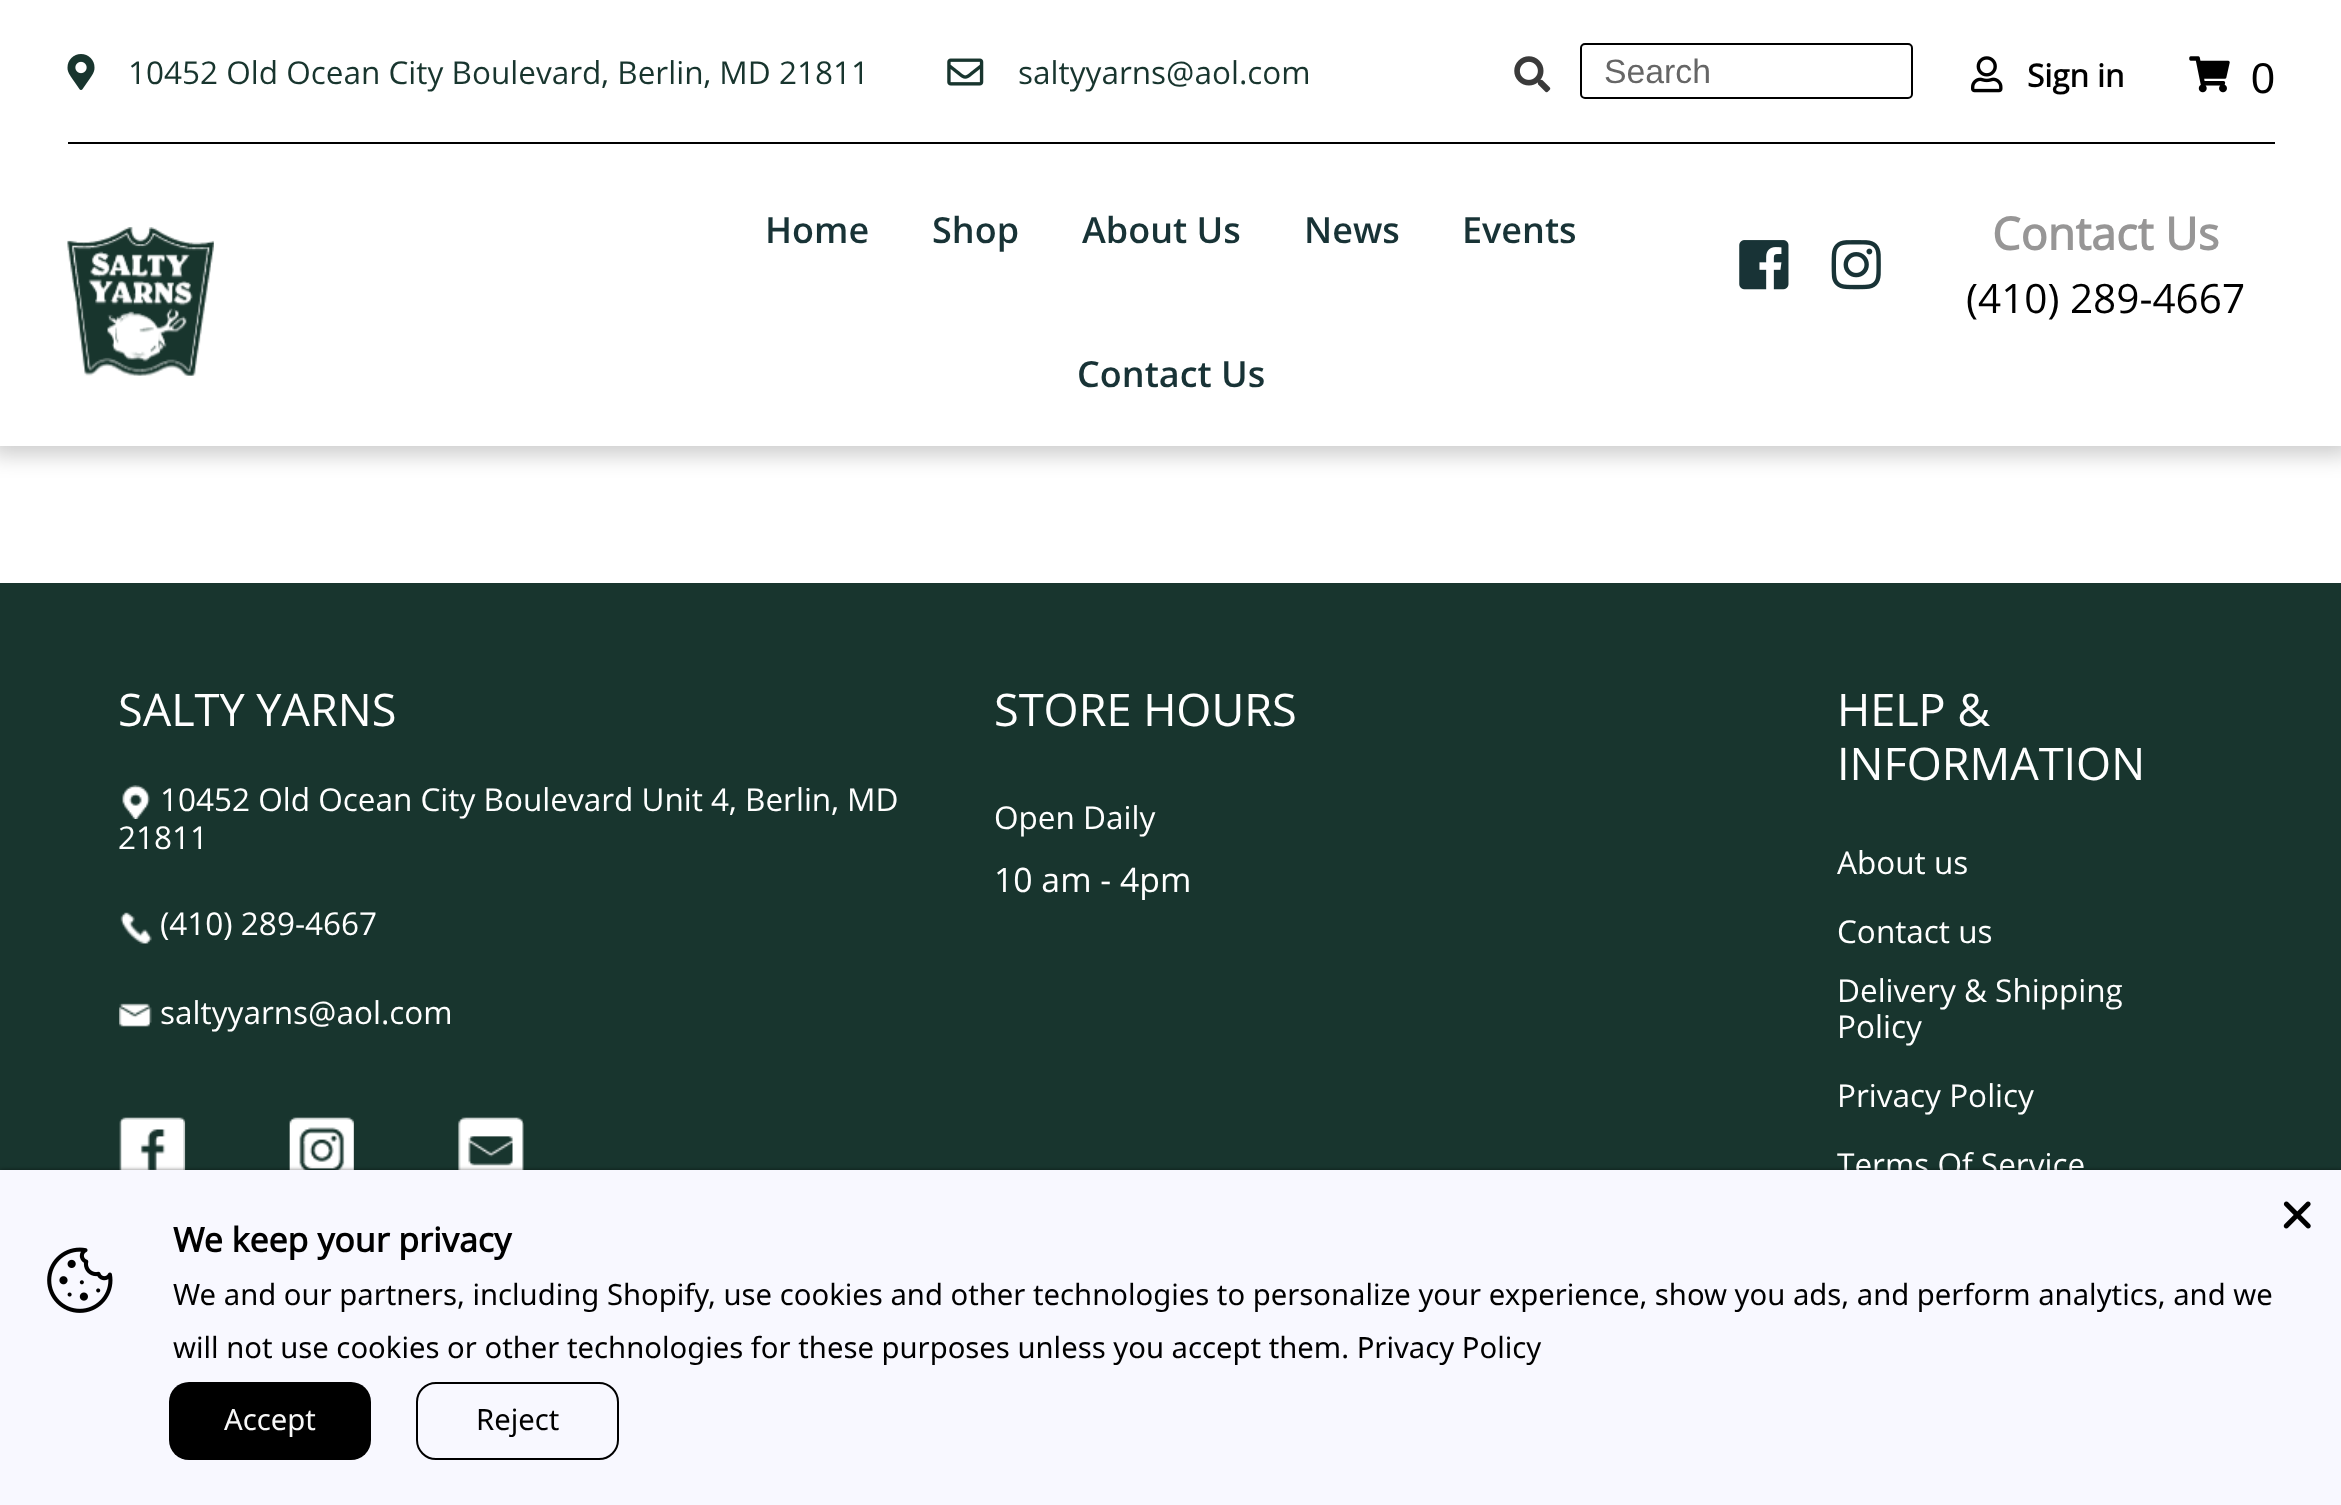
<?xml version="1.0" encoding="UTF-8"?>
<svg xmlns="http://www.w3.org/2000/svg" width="2341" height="1505">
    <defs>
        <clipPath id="clip1"><path d="M 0 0 H 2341 V 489 H 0 Z M 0 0 H 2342 V 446 H 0 Z" clip-rule="evenodd"/></clipPath>
        <filter id="blur1" x="-50%" y="-200%" width="200%" height="500%"><feGaussianBlur stdDeviation="11"/></filter>
        <filter id="blur2" x="-50%" y="-200%" width="200%" height="500%"><feGaussianBlur stdDeviation="2"/></filter>
    </defs>
    <rect width="100%" height="100%" fill="#FFFFFF"/>
    <g clip-path="url(#clip1)">
        <rect x="-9" y="-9" width="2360" height="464" fill="#000000" fill-opacity="0.2" filter="url(#blur1)"/>
    </g>
    <rect x="68" y="142" width="2207" height="2" fill="#000000"/>
    <image x="67" y="54" width="28" height="36" href="img_01.png"/>
    <text x="128" y="84" font-family="Open Sans" font-size="31.5" fill="#18352E">10452 Old Ocean City Boulevard, Berlin, MD 21811</text>
    <image x="947" y="58" width="37" height="28" href="img_02.png"/>
    <text x="1018" y="84" font-family="Open Sans" font-size="31.5" fill="#18352E">saltyyarns@aol.com</text>
    <image x="1514" y="56" width="37" height="37" href="img_03.png"/>
    <rect x="1581" y="44" width="331" height="54" rx="4" fill="none" stroke="#000000" stroke-width="2"/>
    <text x="1604" y="83" font-family="Liberation Sans" font-size="33.75" fill="#666666">Search</text>
    <image x="1971" y="56" width="32" height="37" href="img_04.png"/>
    <text x="2027" y="87" font-family="Open Sans" font-size="31.5" font-weight="700" fill="#000000">Sign in</text>
    <image x="2189" y="56" width="41" height="37" href="img_05.png"/>
    <text x="2251" y="93" font-family="Liberation Sans" font-size="43" fill="#000000">0</text>
    <image x="67" y="227" width="147" height="149" href="img_06.png"/>
    <text x="765" y="243" font-family="Open Sans" font-size="36" font-weight="600" fill="#183336">Home</text>
    <text x="932" y="243" font-family="Open Sans" font-size="36" font-weight="600" fill="#183336">Shop</text>
    <text x="1082" y="243" font-family="Open Sans" font-size="36" font-weight="600" fill="#183336">About Us</text>
    <text x="1304" y="243" font-family="Open Sans" font-size="36" font-weight="600" fill="#183336">News</text>
    <text x="1462" y="243" font-family="Open Sans" font-size="36" font-weight="600" fill="#183336">Events</text>
    <text x="1077" y="387" font-family="Open Sans" font-size="36" font-weight="600" fill="#183336">Contact Us</text>
    <image x="1739" y="240" width="50" height="50" href="img_07.png"/>
    <image x="1831" y="240" width="50" height="50" href="img_08.png"/>
    <text x="1992" y="250" font-family="Open Sans" font-size="45" font-weight="700" fill="#979696">Contact Us</text>
    <text x="1966" y="313" font-family="Open Sans" font-size="40.5" fill="#000000">(410) 289-4667</text>
    <rect x="0" y="583" width="2341" height="587" fill="#18352E"/>
    <text x="118" y="726" font-family="Open Sans" font-size="45" fill="#FFFFFF">SALTY YARNS</text>
    <image x="122" y="785" width="28" height="34" href="img_09.png"/>
    <text x="160" y="811" font-family="Open Sans" font-size="31.5" fill="#FFFFFF">10452 Old Ocean City Boulevard Unit 4, Berlin, MD</text>
    <text x="118" y="849" font-family="Open Sans" font-size="31.5" fill="#FFFFFF">21811</text>
    <image x="120" y="912" width="32" height="32" href="img_10.png"/>
    <text x="160" y="935" font-family="Open Sans" font-size="31.5" fill="#FFFFFF">(410) 289-4667</text>
    <image x="119" y="1003" width="33" height="24" href="img_11.png"/>
    <text x="160" y="1024" font-family="Open Sans" font-size="31.5" fill="#FFFFFF">saltyyarns@aol.com</text>
    <image x="119" y="1117" width="67" height="53" href="img_12.png"/>
    <image x="289" y="1117" width="65" height="53" href="img_13.png"/>
    <image x="458" y="1117" width="66" height="53" href="img_14.png"/>
    <text x="994" y="726" font-family="Open Sans" font-size="45" fill="#FFFFFF">STORE HOURS</text>
    <text x="994" y="829" font-family="Open Sans" font-size="31.5" fill="#FFFFFF">Open Daily</text>
    <text x="994" y="892" font-family="Open Sans" font-size="33.75" fill="#FFFFFF">10 am - 4pm</text>
    <text font-family="Open Sans" font-size="45" fill="#FFFFFF">
        <tspan x="1837" y="726">HELP &amp;</tspan>
        <tspan x="1837" y="780">INFORMATION</tspan>
    </text>
    <text x="1837" y="874" font-family="Open Sans" font-size="31.5" fill="#FFFFFF">About us</text>
    <text font-family="Open Sans" font-size="31.5" fill="#FFFFFF">
        <tspan x="1837" y="943">Contact us</tspan>
        <tspan x="1837" y="1002">Delivery &amp; Shipping</tspan>
        <tspan x="1837" y="1038">Policy</tspan>
    </text>
    <text x="1837" y="1107" font-family="Open Sans" font-size="31.5" fill="#FFFFFF">Privacy Policy</text>
    <text x="1837" y="1176" font-family="Open Sans" font-size="31.5" fill="#FFFFFF">Terms Of Service</text>
    <rect x="0" y="1170" width="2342" height="335" fill="#000000" fill-opacity="0.5" filter="url(#blur2)"/>
    <rect x="0" y="1170" width="2341" height="335" fill="#F8F8FF"/>
    <image x="2283" y="1201" width="28" height="28" href="img_15.png"/>
    <image x="47" y="1247" width="66" height="66" href="img_16.png"/>
    <text x="173" y="1252" font-family="Noto Sans" font-size="33.75" font-weight="700" fill="#000000">We keep your privacy</text>
    <text font-family="Noto Sans" font-size="29.25" fill="#000000">
        <tspan x="173" y="1305">We and our partners, including Shopify, use cookies and other technologies to personalize your experience, show you ads, and perform analytics, and we</tspan>
        <tspan x="173" y="1358">will not use cookies or other technologies for these purposes unless you accept them. Privacy Policy</tspan>
    </text>
    <rect x="169" y="1382" width="202" height="78" rx="20" fill="#000000"/>
    <text x="224" y="1430" font-family="Noto Sans" font-size="29.25" fill="#F8F8F8">Accept</text>
    <rect x="417" y="1383" width="201" height="76" rx="19" fill="none" stroke="#000000" stroke-width="2"/>
    <text x="476" y="1430" font-family="Noto Sans" font-size="29.25" fill="#000000">Reject</text>
</svg>
